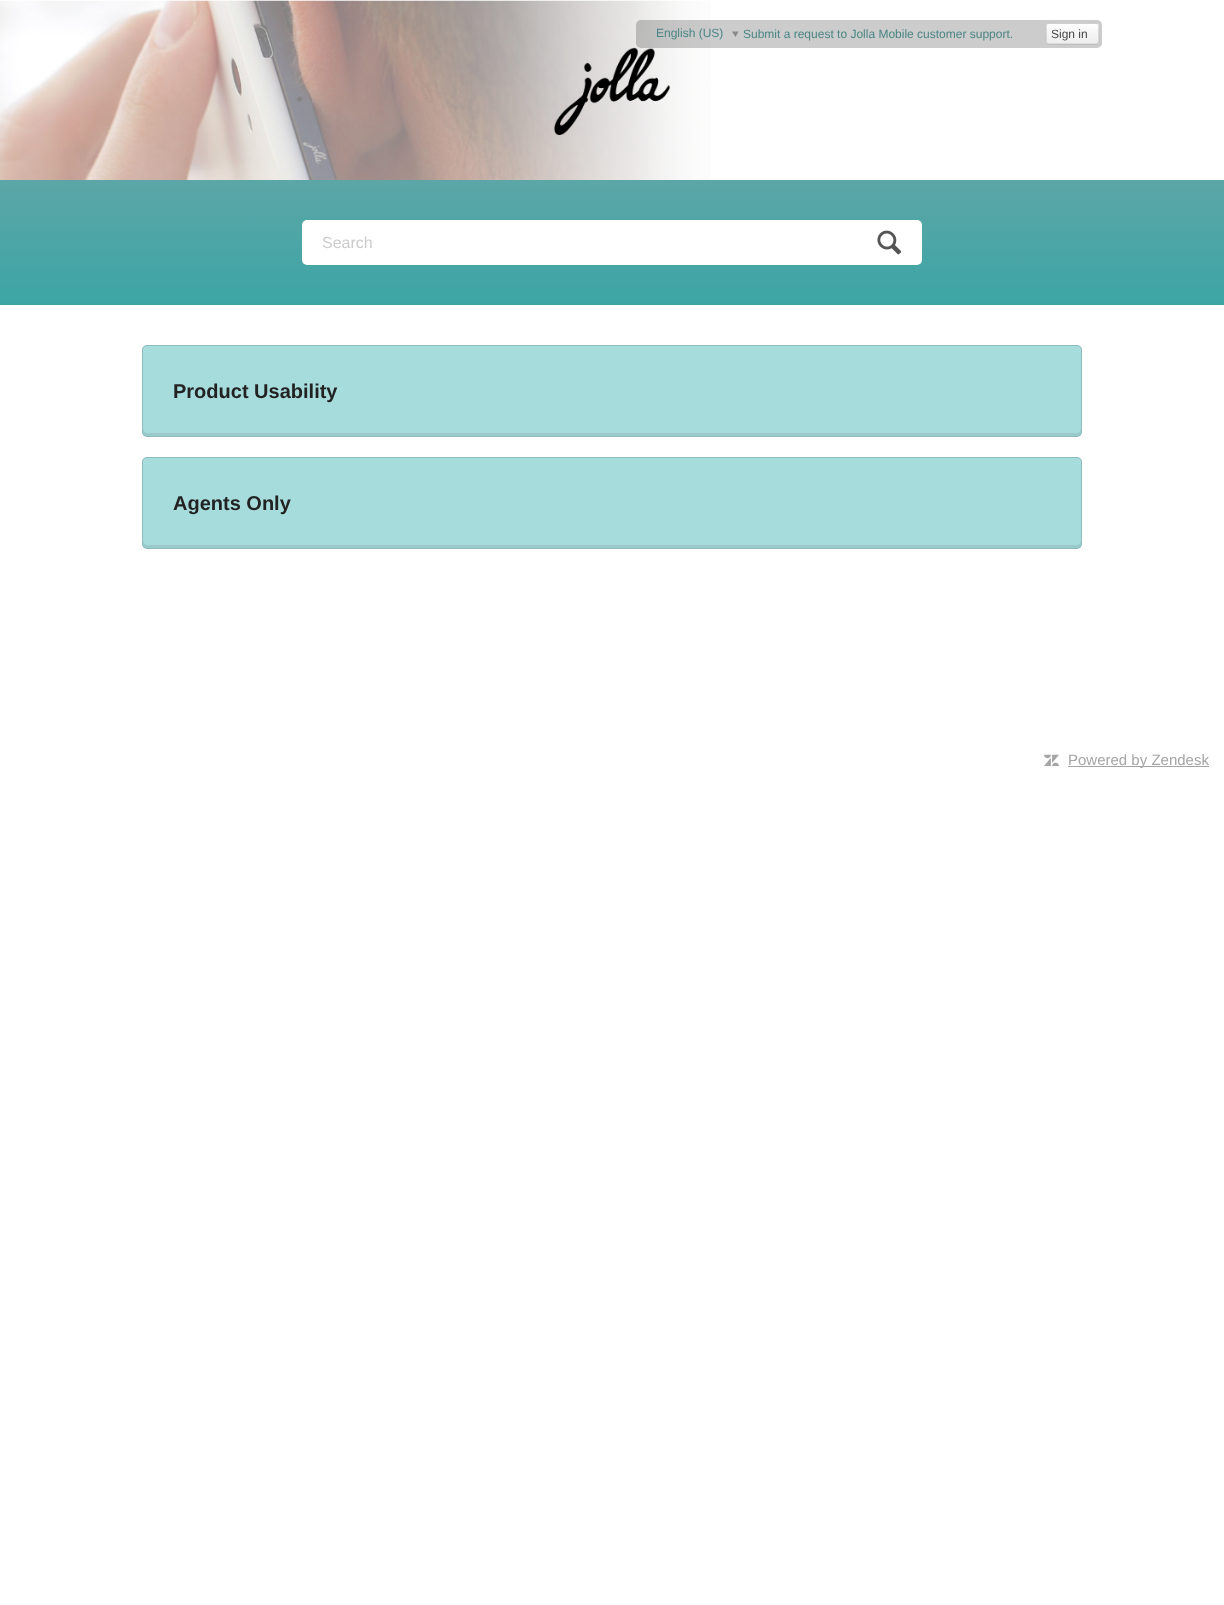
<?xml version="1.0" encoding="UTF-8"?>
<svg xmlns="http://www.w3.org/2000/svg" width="1224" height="1605">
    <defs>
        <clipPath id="clip1"><rect x="1046" y="23" width="53" height="22" rx="3"/></clipPath>
        <linearGradient id="g1" gradientUnits="userSpaceOnUse" x1="1073" y1="4" x2="1073" y2="24"><stop offset="0" stop-color="#FFFFFF"/><stop offset="0.5" stop-color="#F4F4F4"/><stop offset="1" stop-color="#EDEDED"/></linearGradient>
        <linearGradient id="g2" gradientUnits="userSpaceOnUse" x1="1073" y1="24" x2="1073" y2="44"><stop offset="0" stop-color="#FFFFFF"/><stop offset="0.5" stop-color="#F4F4F4"/><stop offset="1" stop-color="#EDEDED"/></linearGradient>
        <linearGradient id="g3" gradientUnits="userSpaceOnUse" x1="612" y1="180" x2="612" y2="305"><stop offset="0" stop-color="#5CA6A7"/><stop offset="1" stop-color="#3DA5A5"/></linearGradient>
    </defs>
    <rect width="100%" height="100%" fill="#FFFFFF"/>
    <image x="0" y="0" width="711" height="180" href="img_01.png"/>
    <image x="554" y="47" width="116" height="89" href="img_02.png"/>
    <rect x="636" y="20" width="466" height="28" rx="5" fill="#000000" fill-opacity="0.2"/>
    <text x="656" y="37" font-family="Liberation Sans" font-size="12" fill="#4B8585">English (US)</text>
    <path d="M 738.5 31.5 L 735.5 37 L 732 31.5 Z" fill="#888888"/>
    <text x="743" y="38" font-family="Liberation Sans" font-size="12" fill="#4B8585">Submit a request to Jolla Mobile customer support.</text>
    <g clip-path="url(#clip1)">
        <rect x="1046" y="23" width="53" height="1" fill="url(#g1)"/>
        <rect x="1046" y="24" width="53" height="20" fill="url(#g2)"/>
    </g>
    <path d="M 1047 41 C 1047 46 1053 44 1057 44 H 1088 C 1092 44 1098 46 1098 41 C 1098 42 1097 43 1096 43 H 1049 C 1048 43 1047 42 1047 41 Z" fill="#DDDDDD"/>
    <path d="M 1098 44 L 1096 44.5 H 1049 L 1047 44" fill="none" stroke="#C0C0C0"/>
    <path d="M 1047 44 C 1045.5 42 1046.5 36 1046.5 34 C 1046.5 22 1044.5 23.5 1057 23.5 H 1088 C 1100.5 23.5 1098.5 22 1098.5 34 C 1098.5 36 1099.5 42 1098 44" fill="none" stroke="#000000" stroke-opacity="0.13"/>
    <text x="1051" y="38" font-family="Liberation Sans" font-size="12" fill="#444444">Sign in</text>
    <rect x="0" y="180" width="1224" height="125" fill="url(#g3)"/>
    <rect x="302" y="220" width="620" height="45" rx="5" fill="#FFFFFF"/>
    <text x="322" y="248" font-family="Liberation Sans" font-size="16" fill="#CCCCCC">Search</text>
    <image x="877" y="230" width="25" height="25" href="img_03.png"/>
    <rect x="142" y="345" width="940" height="92" rx="5" fill="#A7DCDC"/>
    <path d="M 143 429 V 432 C 143 434 145 436 147 436 H 1077 C 1079 436 1081 434 1081 432 V 429 C 1081 431 1079 433 1077 433 H 147 C 145 433 143 431 143 429 Z" fill="#9ACACA"/>
    <rect x="142.5" y="345.5" width="939" height="91" rx="4.5" fill="none" stroke="#000000" stroke-opacity="0.15"/>
    <text x="173" y="398" font-family="Liberation Sans" font-size="20" font-weight="700" fill="#222222">Product Usability</text>
    <rect x="142" y="457" width="940" height="92" rx="5" fill="#A7DCDC"/>
    <path d="M 143 541 V 544 C 143 546 145 548 147 548 H 1077 C 1079 548 1081 546 1081 544 V 541 C 1081 543 1079 545 1077 545 H 147 C 145 545 143 543 143 541 Z" fill="#9ACACA"/>
    <rect x="142.5" y="457.5" width="939" height="91" rx="4.5" fill="none" stroke="#000000" stroke-opacity="0.15"/>
    <text x="173" y="510" font-family="Liberation Sans" font-size="20" font-weight="700" fill="#222222">Agents Only</text>
    <image x="1044" y="754" width="15" height="13" href="img_04.png"/>
    <rect x="1068" y="766" width="141" height="1" fill="#A5A5A5"/>
    <text x="1068" y="765" font-family="Liberation Sans" font-size="15" fill="#A5A5A5">Powered by Zendesk</text>
</svg>
